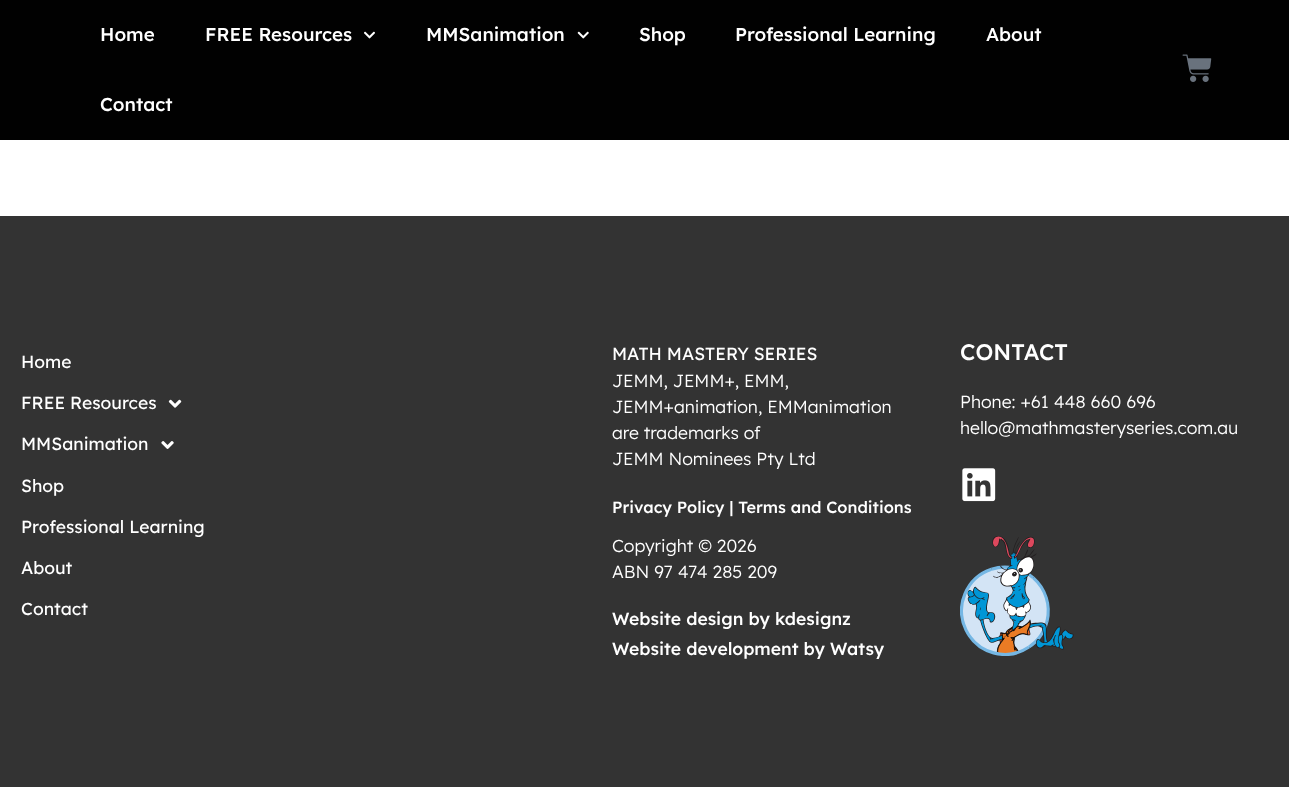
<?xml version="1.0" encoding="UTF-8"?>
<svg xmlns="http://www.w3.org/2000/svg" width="1289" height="787">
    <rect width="100%" height="100%" fill="#FFFFFF"/>
    <rect x="0" y="0" width="1289" height="140" fill="#010101"/>
    <text x="100" y="41" font-family="Lexend" font-size="18.75" font-weight="500" fill="#FFFFFF">Home</text>
    <text x="205" y="41" font-family="Lexend" font-size="18.75" font-weight="500" fill="#FFFFFF">FREE Resources</text>
    <image x="364" y="31" width="11" height="8" href="img_01.png"/>
    <text x="426" y="41" font-family="Lexend" font-size="18.75" font-weight="500" fill="#FFFFFF">MMSanimation</text>
    <image x="577" y="31" width="12" height="8" href="img_02.png"/>
    <text x="639" y="41" font-family="Lexend" font-size="18.75" font-weight="500" fill="#FFFFFF">Shop</text>
    <text x="735" y="41" font-family="Lexend" font-size="18.75" font-weight="500" fill="#FFFFFF">Professional Learning</text>
    <text x="986" y="41" font-family="Lexend" font-size="18.75" font-weight="500" fill="#FFFFFF">About</text>
    <text x="100" y="111" font-family="Lexend" font-size="18.75" font-weight="500" fill="#FFFFFF">Contact</text>
    <image x="1182" y="54" width="30" height="28" href="img_03.png"/>
    <rect x="0" y="216" width="1289" height="571" fill="#333333"/>
    <text x="21" y="368" font-family="Lexend" font-size="17.5" fill="#FFFFFF">Home</text>
    <text x="21" y="409" font-family="Lexend" font-size="17.5" fill="#FFFFFF">FREE Resources</text>
    <image x="168" y="399" width="14" height="9" href="img_04.png"/>
    <text x="21" y="450" font-family="Lexend" font-size="17.5" fill="#FFFFFF">MMSanimation</text>
    <image x="161" y="441" width="13" height="8" href="img_05.png"/>
    <text x="21" y="492" font-family="Lexend" font-size="17.5" fill="#FFFFFF">Shop</text>
    <text x="21" y="533" font-family="Lexend" font-size="17.5" fill="#FFFFFF">Professional Learning</text>
    <text x="21" y="574" font-family="Lexend" font-size="17.5" fill="#FFFFFF">About</text>
    <text x="21" y="615" font-family="Lexend" font-size="17.5" fill="#FFFFFF">Contact</text>
    <text x="612" y="360" font-family="Lexend" font-size="17.5" fill="#FFFFFF">MATH MASTERY SERIES</text>
    <text font-family="Lexend" font-size="17.5" font-weight="300" fill="#FFFFFF">
        <tspan x="612" y="387">JEMM, JEMM+, EMM,</tspan>
        <tspan x="612" y="413">JEMM+animation, EMManimation</tspan>
        <tspan x="612" y="439">are trademarks of</tspan>
        <tspan x="612" y="465">JEMM Nominees Pty Ltd</tspan>
    </text>
    <text x="612" y="513" font-family="Lexend" font-size="16.25" font-weight="500" fill="#FFFFFF">Privacy Policy | Terms and Conditions</text>
    <text font-family="Lexend" font-size="17.5" font-weight="300" fill="#FFFFFF">
        <tspan x="612" y="552">Copyright © 2026</tspan>
        <tspan x="612" y="578">ABN 97 474 285 209</tspan>
    </text>
    <text font-family="Lexend" font-size="17.5" font-weight="500" fill="#FFFFFF">
        <tspan x="612" y="625">Website design by kdesignz</tspan>
        <tspan x="612" y="655">Website development by Watsy</tspan>
    </text>
    <text x="960" y="360" font-family="Lexend" font-size="22.5" font-weight="500" fill="#FFFFFF">CONTACT</text>
    <text font-family="Lexend" font-size="17.5" font-weight="300" fill="#FFFFFF">
        <tspan x="960" y="408">Phone: +61 448 660 696</tspan>
        <tspan x="960" y="434">hello@mathmasteryseries.com.au</tspan>
    </text>
    <image x="962" y="468" width="34" height="34" href="img_06.png"/>
    <image x="960" y="536" width="114" height="120" href="img_07.png"/>
</svg>
